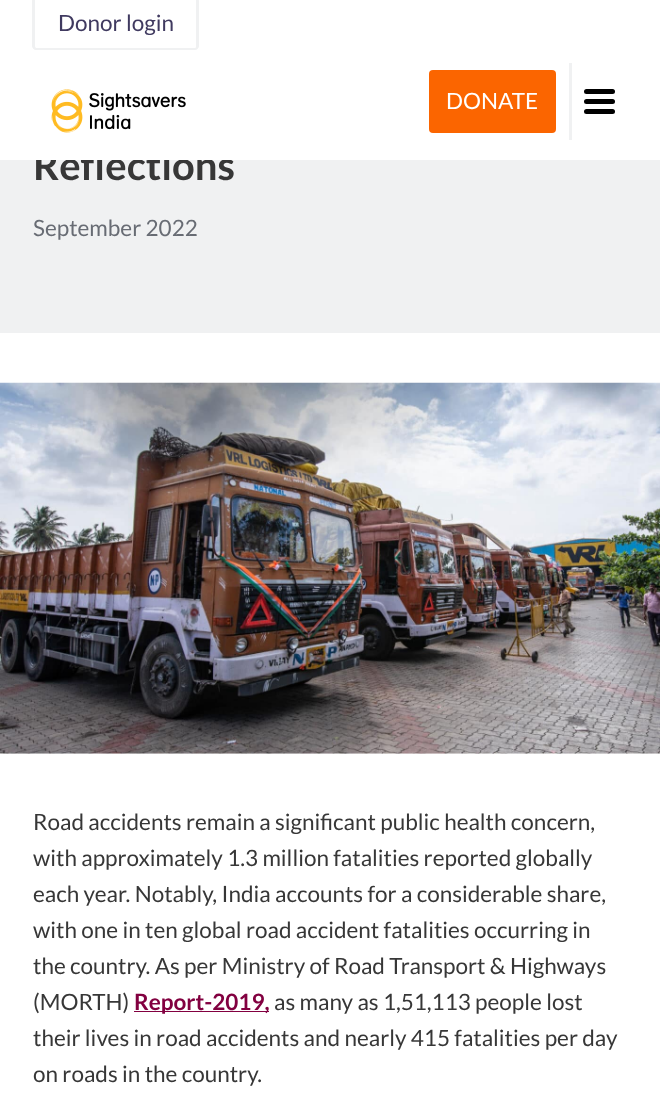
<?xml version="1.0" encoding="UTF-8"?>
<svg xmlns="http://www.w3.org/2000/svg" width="660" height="1114">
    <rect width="100%" height="100%" fill="#FFFFFF"/>
    <rect x="0" y="160" width="660" height="173" fill="#F0F1F2"/>
    <text x="33" y="180" font-family="Lato" font-size="40" font-weight="700" fill="#373737">Reflections</text>
    <rect x="36" y="150" width="195" height="10" fill="#FFFFFF"/>
    <path d="M 36 -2 H 195 C 197 -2 199 -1 199 1 V 46 C 199 48 197 50 195 50 H 36 C 34 50 32 48 32 46 V 1 C 32 -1 34 -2 36 -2 Z M 36 -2 H 195 C 196 -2 196 -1 196 1 V 46 C 196 47 196 48 195 48 H 36 C 36 48 35 47 35 46 V 1 C 35 -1 36 -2 36 -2 Z" fill="#F0F1F2" fill-rule="evenodd"/>
    <text x="58" y="31" font-family="Lato" font-size="22.5" fill="#403A60">Donor login</text>
    <image x="51" y="89" width="135" height="44" href="img_01.png"/>
    <rect x="429" y="70" width="127" height="63" rx="4" fill="#FB6500"/>
    <text x="446" y="109" font-family="Lato" font-size="22.5" fill="#FFFFFF">DONATE</text>
    <rect x="569" y="63" width="3" height="77" fill="#F0F1F2"/>
    <rect x="584" y="99" width="31" height="5" rx="2.5" fill="#000000"/>
    <rect x="584" y="89" width="31" height="5" rx="2.5" fill="#000000"/>
    <rect x="584" y="109" width="31" height="5" rx="2.5" fill="#000000"/>
    <text x="33" y="236" font-family="Lato" font-size="22.5" fill="#686C74">September 2022</text>
    <image x="0" y="382" width="660" height="372" href="img_02.png"/>
    <text font-family="Lato" font-size="22.5" fill="#373737">
        <tspan x="33" y="830">Road accidents remain a significant public health concern,</tspan>
        <tspan x="33" y="866">with approximately 1.3 million fatalities reported globally</tspan>
        <tspan x="33" y="902">each year. Notably, India accounts for a considerable share,</tspan>
        <tspan x="33" y="938">with one in ten global road accident fatalities occurring in</tspan>
        <tspan x="33" y="974">the country. As per Ministry of Road Transport &amp; Highways</tspan>
        <tspan x="33" y="1010">(MORTH)</tspan>
    </text>
    <rect x="134" y="1011" width="135" height="1" fill="#820040"/>
    <text x="134" y="1010" font-family="Lato" font-size="22.5" font-weight="700" fill="#820040">Report-2019,</text>
    <text x="274" y="1010" font-family="Lato" font-size="22.5" fill="#373737">as many as 1,51,113 people lost</text>
    <text font-family="Lato" font-size="22.5" fill="#373737">
        <tspan x="33" y="1046">their lives in road accidents and nearly 415 fatalities per day</tspan>
        <tspan x="33" y="1082">on roads in the country.</tspan>
    </text>
</svg>
